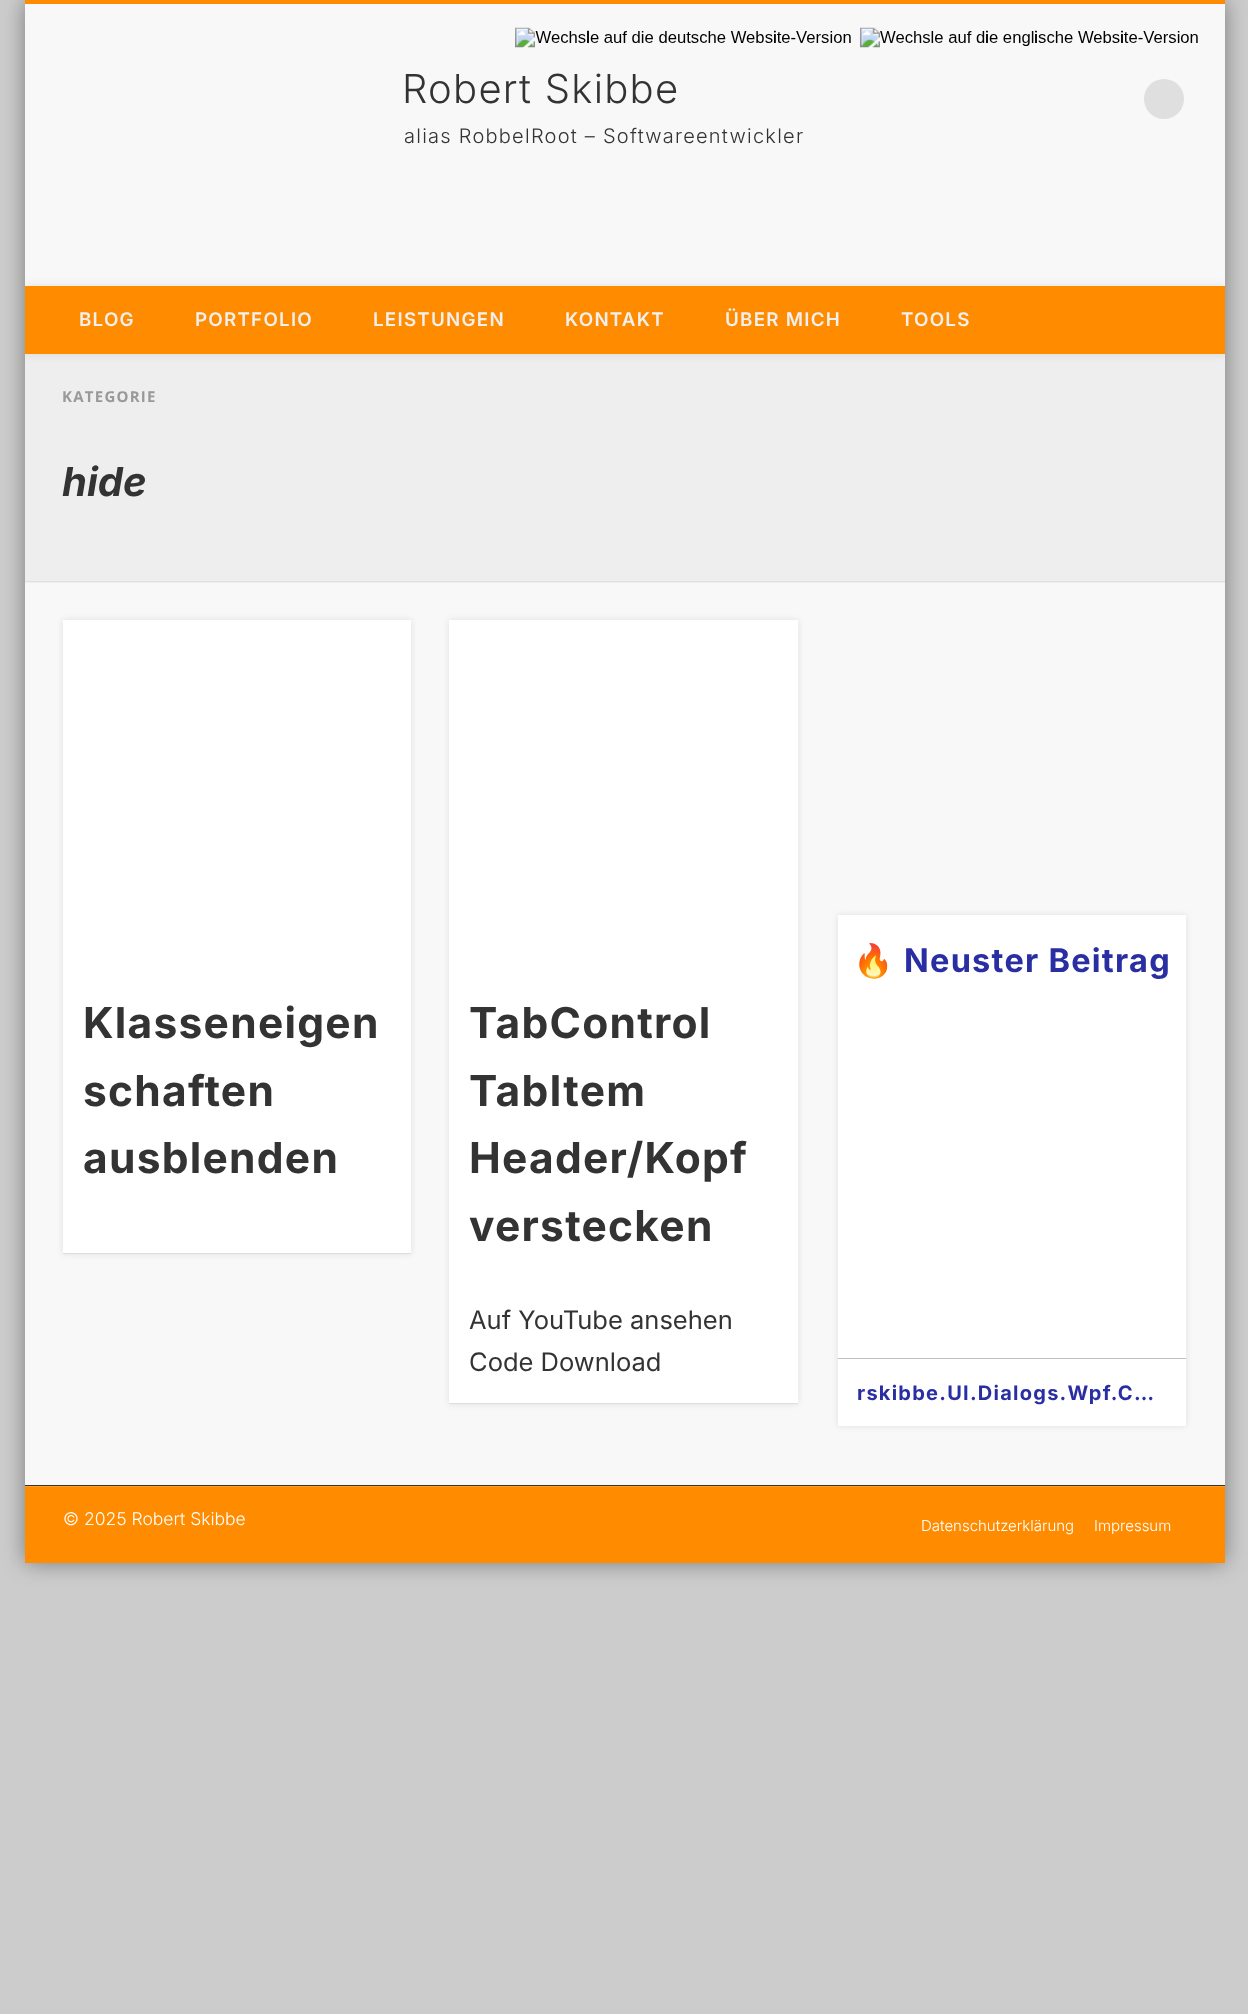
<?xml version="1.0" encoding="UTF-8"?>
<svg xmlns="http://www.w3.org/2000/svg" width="1248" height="2014">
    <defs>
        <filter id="blur1" x="-50%" y="-200%" width="200%" height="500%"><feGaussianBlur stdDeviation="11"/></filter>
        <clipPath id="clip1"><rect x="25" y="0" width="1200" height="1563"/></clipPath>
        <filter id="blur2" x="-50%" y="-200%" width="200%" height="500%"><feGaussianBlur stdDeviation="4.5"/></filter>
        <filter id="blur3" x="-50%" y="-200%" width="200%" height="500%"><feGaussianBlur stdDeviation="3"/></filter>
    </defs>
    <rect width="100%" height="100%" fill="#CCCCCC"/>
    <rect x="25" y="0" width="1200" height="1563" fill="#000000" fill-opacity="0.4" filter="url(#blur1)"/>
    <rect x="25" y="4" width="1200" height="1481" fill="#F8F8F8"/>
    <image x="515" y="27" width="336" height="21" href="img_01.png"/>
    <text x="586" y="43" font-family="Liberation Sans" font-size="17" fill="#000000">l</text>
    <text x="773" y="43" font-family="Liberation Sans" font-size="17" fill="#000000">i</text>
    <image x="860" y="27" width="338" height="21" href="img_02.png"/>
    <text x="985" y="43" font-family="Liberation Sans" font-size="17" fill="#000000">i</text>
    <text x="1034" y="43" font-family="Liberation Sans" font-size="17" fill="#000000">i</text>
    <text x="1120" y="43" font-family="Liberation Sans" font-size="17" fill="#000000">i</text>
    <rect x="25" y="0" width="1200" height="4" fill="#FF8C00"/>
    <text x="402" y="103" font-family="Inter" font-size="40" font-weight="300" letter-spacing="1.25" fill="#333333">Robert Skibbe</text>
    <text x="404" y="143" font-family="Inter" font-size="20" font-weight="300" letter-spacing="1.25" fill="#333333">alias RobbelRoot – Softwareentwickler</text>
    <circle cx="1164" cy="99" r="20" fill="#DFDFDF"/>
    <rect x="25" y="354" width="1200" height="229" fill="#EEEEEE"/>
    <g clip-path="url(#clip1)">
        <rect x="25" y="286" width="1200" height="68" fill="#000000" fill-opacity="0.1" filter="url(#blur2)"/>
    </g>
    <rect x="25" y="286" width="1200" height="68" fill="#FF8C00"/>
    <text x="79" y="326" font-family="Inter" font-size="18.75" font-weight="600" letter-spacing="1.25" fill="#F0F0F0">BLOG</text>
    <text x="195" y="326" font-family="Inter" font-size="18.75" font-weight="600" letter-spacing="1.25" fill="#F0F0F0">PORTFOLIO</text>
    <text x="373" y="326" font-family="Inter" font-size="18.75" font-weight="600" letter-spacing="1.25" fill="#F0F0F0">LEISTUNGEN</text>
    <text x="565" y="326" font-family="Inter" font-size="18.75" font-weight="600" letter-spacing="1.25" fill="#F0F0F0">KONTAKT</text>
    <text x="725" y="326" font-family="Inter" font-size="18.75" font-weight="600" letter-spacing="1.25" fill="#F0F0F0">ÜBER MICH</text>
    <text x="901" y="326" font-family="Inter" font-size="18.75" font-weight="600" letter-spacing="1.25" fill="#F0F0F0">TOOLS</text>
    <rect x="25" y="581" width="1200" height="1" fill="#E1E1E1"/>
    <text x="62" y="402" font-family="Open Sans" font-size="15" font-weight="700" letter-spacing="1.25" fill="#999999">KATEGORIE</text>
    <text x="62" y="496" font-family="Inter" font-size="40" font-weight="700" font-style="italic" fill="#333333">hide</text>
    <rect x="63" y="620" width="348" height="634" fill="#000000" fill-opacity="0.1" filter="url(#blur3)"/>
    <rect x="63" y="620" width="348" height="633" fill="#FFFFFF"/>
    <rect x="63" y="1253" width="348" height="1" fill="#DEDEDE"/>
    <text font-family="Inter" font-size="42.5" font-weight="700" letter-spacing="1.25" fill="#333333">
        <tspan x="83" y="1038">Klasseneigen</tspan>
        <tspan x="83" y="1106">schaften</tspan>
        <tspan x="83" y="1173">ausblenden</tspan>
    </text>
    <rect x="449" y="620" width="349" height="784" fill="#000000" fill-opacity="0.1" filter="url(#blur3)"/>
    <rect x="449" y="620" width="349" height="783" fill="#FFFFFF"/>
    <rect x="449" y="1403" width="349" height="1" fill="#DEDEDE"/>
    <text font-family="Inter" font-size="42.5" font-weight="700" letter-spacing="1.25" fill="#333333">
        <tspan x="469" y="1038">TabControl</tspan>
        <tspan x="469" y="1106">TabItem</tspan>
        <tspan x="469" y="1173">Header/Kopf</tspan>
        <tspan x="469" y="1241">verstecken</tspan>
    </text>
    <text font-family="Inter" font-size="25.5" fill="#333333">
        <tspan x="469" y="1329">Auf YouTube ansehen</tspan>
        <tspan x="469" y="1371">Code Download</tspan>
    </text>
    <rect x="838" y="915" width="348" height="511" fill="#000000" fill-opacity="0.1" filter="url(#blur3)"/>
    <rect x="838" y="915" width="348" height="511" fill="#FFFFFF"/>
    <text x="853" y="972" font-family="Noto Color Emoji" font-size="32.5" font-weight="700" letter-spacing="1.25" fill="#292FA3">🔥</text>
    <text x="904" y="972" font-family="Inter" font-size="32.5" font-weight="700" letter-spacing="1.25" fill="#292FA3">Neuster Beitrag</text>
    <rect x="838" y="1358" width="348" height="1" fill="#C0C0C0"/>
    <text x="857" y="1400" font-family="Inter" font-size="20" font-weight="700" letter-spacing="1.25" fill="#292FA3">rskibbe.UI.Dialogs.Wpf.C…</text>
    <rect x="25" y="1485" width="1200" height="1" fill="#343434"/>
    <rect x="25" y="1487" width="1200" height="76" fill="#FF8C00"/>
    <rect x="25" y="1486" width="1200" height="1" fill="#FF9D25"/>
    <text x="63" y="1525" font-family="Inter" font-size="17.5" font-weight="300" fill="#FFFFFF">© 2025 Robert Skibbe</text>
    <text x="921" y="1531" font-family="Inter" font-size="15" font-weight="300" fill="#FFFFFF">Datenschutzerklärung</text>
    <text x="1094" y="1531" font-family="Inter" font-size="15" font-weight="300" fill="#FFFFFF">Impressum</text>
</svg>
